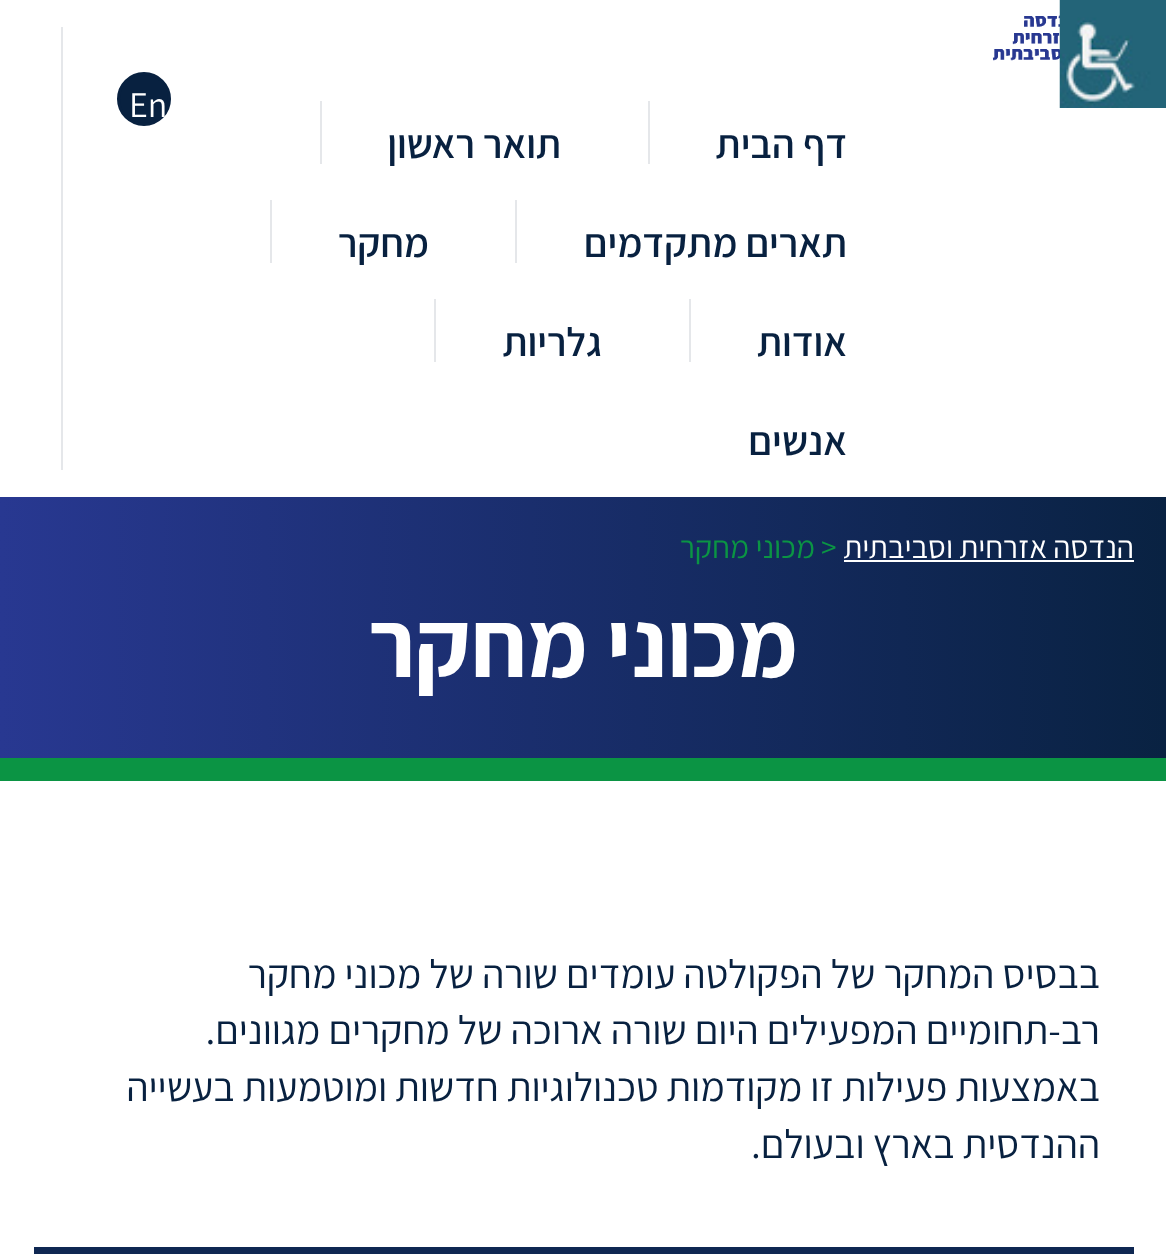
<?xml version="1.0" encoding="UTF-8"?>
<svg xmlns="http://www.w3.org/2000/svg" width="1166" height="1254">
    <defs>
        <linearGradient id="g1" gradientUnits="userSpaceOnUse" x1="0" y1="628" x2="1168" y2="628"><stop offset="0" stop-color="#283891"/><stop offset="1" stop-color="#092242"/></linearGradient>
    </defs>
    <rect width="100%" height="100%" fill="#FFFFFF"/>
    <image x="992" y="15" width="68" height="46" href="img_02.png"/>
    <image x="1059" y="0" width="107" height="108" href="img_01.png"/>
    <circle cx="144" cy="99" r="25.5" fill="#082140" stroke="#082140" stroke-width="3"/>
    <text x="129" y="117" font-family="Assistant" font-size="36" fill="#FFFFFF">En</text>
    <rect x="61" y="27" width="2" height="443" fill="#E5E7EA"/>
    <text x="847" y="158" font-family="Assistant" font-size="40.5" font-weight="600" direction="rtl" fill="#082140">דף הבית</text>
    <rect x="648" y="101" width="2" height="63" fill="#E5E7EA"/>
    <text x="561" y="158" font-family="Assistant" font-size="40.5" font-weight="600" direction="rtl" fill="#082140">תואר ראשון</text>
    <rect x="320" y="101" width="2" height="63" fill="#E5E7EA"/>
    <text x="847" y="257" font-family="Assistant" font-size="40.5" font-weight="600" direction="rtl" fill="#082140">תארים מתקדמים</text>
    <rect x="515" y="200" width="2" height="63" fill="#E5E7EA"/>
    <text x="429" y="257" font-family="Assistant" font-size="40.5" font-weight="600" direction="rtl" fill="#082140">מחקר</text>
    <rect x="270" y="200" width="2" height="63" fill="#E5E7EA"/>
    <text x="847" y="356" font-family="Assistant" font-size="40.5" font-weight="600" direction="rtl" fill="#082140">אודות</text>
    <rect x="689" y="299" width="2" height="63" fill="#E5E7EA"/>
    <text x="602" y="356" font-family="Assistant" font-size="40.5" font-weight="600" direction="rtl" fill="#082140">גלריות</text>
    <rect x="434" y="299" width="2" height="63" fill="#E5E7EA"/>
    <text x="847" y="455" font-family="Assistant" font-size="40.5" font-weight="600" direction="rtl" fill="#082140">אנשים</text>
    <rect x="0" y="497" width="1166" height="261" fill="url(#g1)"/>
    <rect x="0" y="758" width="1166" height="23" fill="#0B9444"/>
    <text x="1134" y="558" font-family="Assistant" font-size="31.5" direction="rtl" fill="#FFFFFF">הנדסה אזרחית וסביבתית</text>
    <rect x="844" y="560" width="290" height="2" fill="#FFFFFF"/>
    <text x="821" y="558" font-family="Assistant" font-size="31.5" fill="#0B9444">&gt;</text>
    <text x="815" y="558" font-family="Assistant" font-size="31.5" direction="rtl" fill="#0B9444">מכוני מחקר</text>
    <text x="798" y="677" font-family="Assistant" font-size="94.5" font-weight="700" direction="rtl" fill="#FFFFFF">מכוני מחקר</text>
    <text font-family="Assistant" font-size="40.5" direction="rtl" fill="#082140">
        <tspan x="1100" y="988">בבסיס המחקר של הפקולטה עומדים שורה של מכוני מחקר</tspan>
        <tspan x="1100" y="1044">רב-תחומיים המפעילים היום שורה ארוכה של מחקרים מגוונים.</tspan>
        <tspan x="1100" y="1101">באמצעות פעילות זו מקודמות טכנולוגיות חדשות ומוטמעות בעשייה</tspan>
        <tspan x="1100" y="1158">ההנדסית בארץ ובעולם.</tspan>
    </text>
    <rect x="34" y="1247" width="1100" height="7" fill="#0F2752"/>
</svg>
